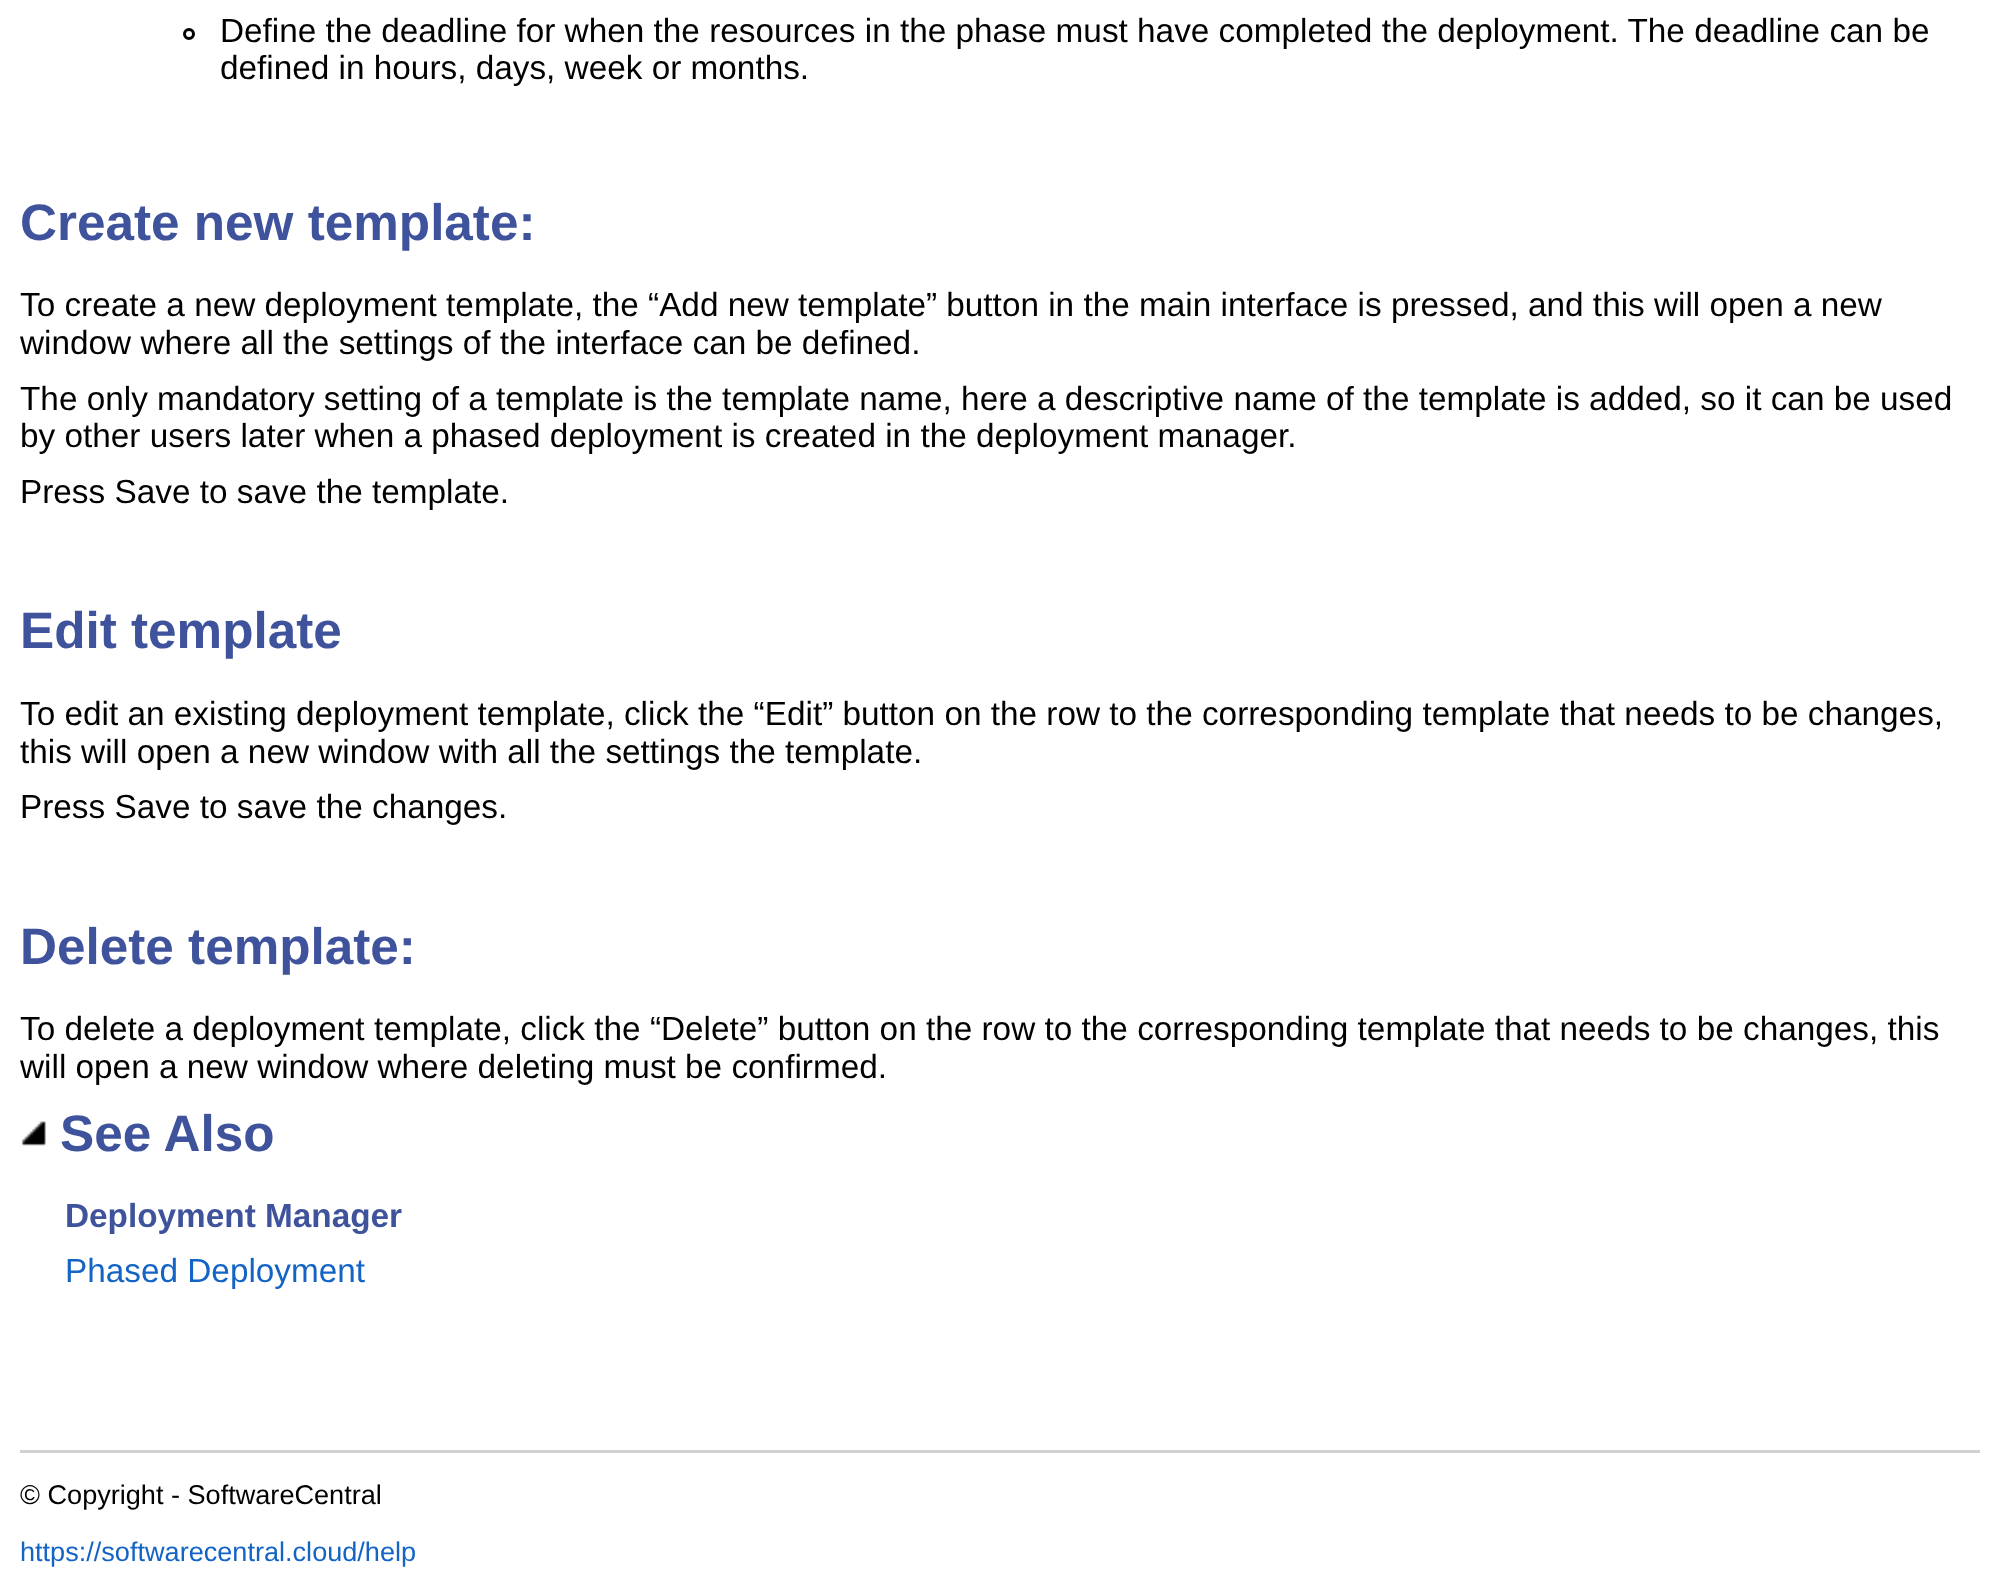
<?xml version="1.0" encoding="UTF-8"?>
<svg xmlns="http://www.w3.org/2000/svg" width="2000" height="1584">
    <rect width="100%" height="100%" fill="#FFFFFF"/>
    <circle cx="189" cy="34" r="4.5" fill="none" stroke="#000000" stroke-width="3"/>
    <text font-family="Liberation Sans" font-size="33.33" fill="#000000">
        <tspan x="220" y="42">Define the deadline for when the resources in the phase must have completed the deployment. The deadline can be</tspan>
        <tspan x="220" y="79">defined in hours, days, week or months.</tspan>
    </text>
    <text x="20" y="240" font-family="Liberation Sans" font-size="51.25" font-weight="700" fill="#3F529C">Create new template:</text>
    <text font-family="Liberation Sans" font-size="33.33" fill="#000000">
        <tspan x="20" y="316">To create a new deployment template, the “Add new template” button in the main interface is pressed, and this will open a new</tspan>
        <tspan x="20" y="354">window where all the settings of the interface can be defined.</tspan>
        <tspan x="20" y="410">The only mandatory setting of a template is the template name, here a descriptive name of the template is added, so it can be used</tspan>
        <tspan x="20" y="447">by other users later when a phased deployment is created in the deployment manager.</tspan>
        <tspan x="20" y="503">Press Save to save the template.</tspan>
    </text>
    <text x="20" y="648" font-family="Liberation Sans" font-size="51.25" font-weight="700" fill="#3F529C">Edit template</text>
    <text font-family="Liberation Sans" font-size="33.33" fill="#000000">
        <tspan x="20" y="725">To edit an existing deployment template, click the “Edit” button on the row to the corresponding template that needs to be changes,</tspan>
        <tspan x="20" y="763">this will open a new window with all the settings the template.</tspan>
        <tspan x="20" y="818">Press Save to save the changes.</tspan>
    </text>
    <text x="20" y="964" font-family="Liberation Sans" font-size="51.25" font-weight="700" fill="#3F529C">Delete template:</text>
    <text font-family="Liberation Sans" font-size="33.33" fill="#000000">
        <tspan x="20" y="1040">To delete a deployment template, click the “Delete” button on the row to the corresponding template that needs to be changes, this</tspan>
        <tspan x="20" y="1078">will open a new window where deleting must be confirmed.</tspan>
    </text>
    <image x="21" y="1121" width="25" height="25" href="img_01.png"/>
    <text x="60" y="1151" font-family="Liberation Sans" font-size="51.25" font-weight="700" fill="#3F529C">See Also</text>
    <text x="65" y="1227" font-family="Liberation Sans" font-size="33.33" font-weight="700" fill="#3F529C">Deployment Manager</text>
    <text x="65" y="1282" font-family="Liberation Sans" font-size="33.33" fill="#1364C4">Phased Deployment</text>
    <rect x="20" y="1450" width="1960" height="3" fill="#D0D0D0"/>
    <text x="20" y="1504" font-family="Liberation Sans" font-size="27.1" fill="#000000">© Copyright - SoftwareCentral</text>
    <text x="20" y="1561" font-family="Liberation Sans" font-size="27.1" fill="#1364C4">https://softwarecentral.cloud/help</text>
</svg>
